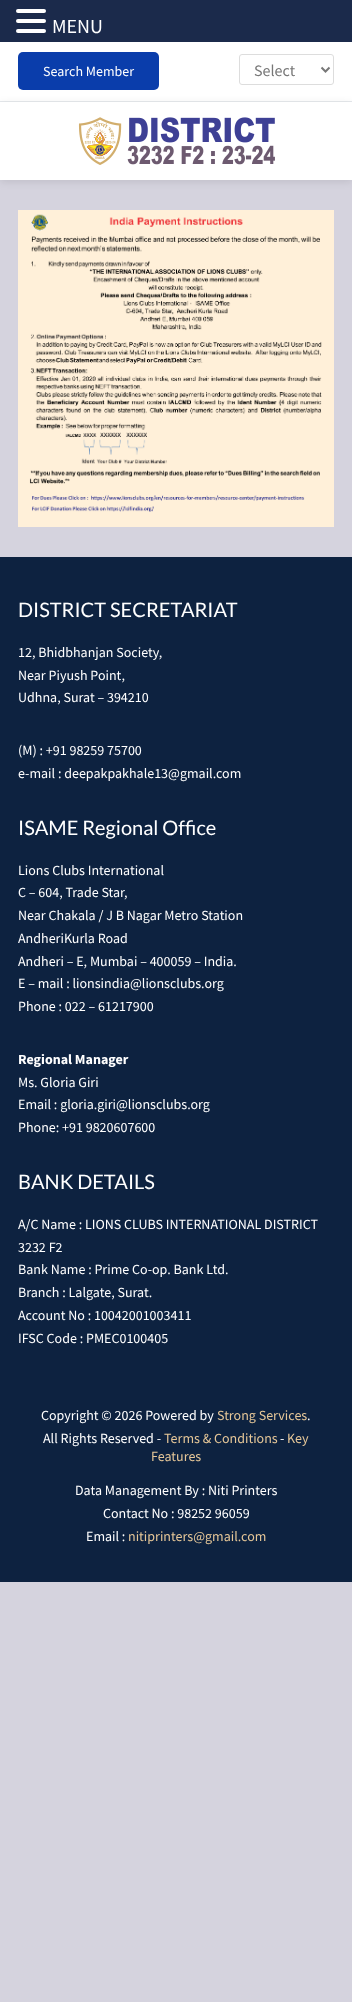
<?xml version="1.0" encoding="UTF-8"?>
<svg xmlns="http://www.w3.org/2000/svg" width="352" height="2002">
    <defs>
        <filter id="blur1" x="-50%" y="-200%" width="200%" height="500%"><feGaussianBlur stdDeviation="4"/></filter>
    </defs>
    <rect width="100%" height="100%" fill="#D5D3DE"/>
    <rect x="0" y="0" width="352" height="42" fill="#1B2A4B"/>
    <rect x="16" y="9" width="30" height="4" rx="2" fill="#FFFFFF"/>
    <rect x="16" y="19" width="30" height="4" rx="2" fill="#FFFFFF"/>
    <rect x="16" y="29" width="30" height="4" rx="2" fill="#FFFFFF"/>
    <text x="52" y="33" font-family="Source Sans Pro" font-size="20" fill="#FFFFFF">MENU</text>
    <rect x="0" y="42" width="352" height="59" fill="#FFFFFF"/>
    <rect x="0" y="101" width="352" height="1" fill="#E6E9ED"/>
    <rect x="18" y="52" width="141" height="38" rx="5" fill="#0A3DAB"/>
    <text x="43" y="76" font-family="Source Sans Pro" font-size="14" fill="#FFFFFF">Search Member</text>
    <rect x="239.5" y="54.5" width="94" height="30" rx="2.5" fill="none" stroke="#DDDDDD"/>
    <path d="M 321.5 67.5 L 325.5 71.5 L 329.5 67.5" fill="none" stroke="#777777" stroke-width="2"/>
    <text x="254" y="76" font-family="Source Sans Pro" font-size="16" fill="#777777">Select</text>
    <rect x="0" y="104" width="352" height="78" fill="#000000" fill-opacity="0.1" filter="url(#blur1)"/>
    <rect x="0" y="102" width="352" height="78" fill="#FFFFFF"/>
    <image x="78" y="117" width="197" height="48" href="img_01.png"/>
    <image x="18" y="210" width="316" height="317" href="img_02.png"/>
    <rect x="0" y="557" width="352" height="1025" fill="#0D2240"/>
    <text x="18" y="617" font-family="Lato" font-size="20" fill="#FFFFFF">DISTRICT SECRETARIAT</text>
    <text font-family="Source Sans Pro" font-size="14" fill="#FFFFFF">
        <tspan x="18" y="657">12, Bhidbhanjan Society,</tspan>
        <tspan x="18" y="680">Near Piyush Point,</tspan>
        <tspan x="18" y="702">Udhna, Surat – 394210</tspan>
    </text>
    <text font-family="Source Sans Pro" font-size="14" fill="#FFFFFF">
        <tspan x="18" y="755">(M) : +91 98259 75700</tspan>
        <tspan x="18" y="778">e-mail : deepakpakhale13@gmail.com</tspan>
    </text>
    <text x="18" y="835" font-family="Lato" font-size="20" fill="#FFFFFF">ISAME Regional Office</text>
    <text font-family="Source Sans Pro" font-size="14" fill="#FFFFFF">
        <tspan x="18" y="875">Lions Clubs International</tspan>
        <tspan x="18" y="897">C – 604, Trade Star,</tspan>
        <tspan x="18" y="920">Near Chakala / J B Nagar Metro Station</tspan>
        <tspan x="18" y="943">AndheriKurla Road</tspan>
        <tspan x="18" y="966">Andheri – E, Mumbai – 400059 – India.</tspan>
        <tspan x="18" y="988">E – mail : lionsindia@lionsclubs.org</tspan>
        <tspan x="18" y="1011">Phone : 022 – 61217900</tspan>
    </text>
    <text x="18" y="1064" font-family="Source Sans Pro" font-size="14" font-weight="700" fill="#FFFFFF">Regional Manager</text>
    <text font-family="Source Sans Pro" font-size="14" fill="#FFFFFF">
        <tspan x="18" y="1087">Ms. Gloria Giri</tspan>
        <tspan x="18" y="1109">Email : gloria.giri@lionsclubs.org</tspan>
        <tspan x="18" y="1132">Phone: +91 9820607600</tspan>
    </text>
    <text x="18" y="1189" font-family="Lato" font-size="20" fill="#FFFFFF">BANK DETAILS</text>
    <text font-family="Source Sans Pro" font-size="14" fill="#FFFFFF">
        <tspan x="18" y="1229">A/C Name : LIONS CLUBS INTERNATIONAL DISTRICT</tspan>
        <tspan x="18" y="1252">3232 F2</tspan>
        <tspan x="18" y="1274">Bank Name : Prime Co-op. Bank Ltd.</tspan>
        <tspan x="18" y="1297">Branch : Lalgate, Surat.</tspan>
        <tspan x="18" y="1320">Account No : 10042001003411</tspan>
        <tspan x="18" y="1343">IFSC Code : PMEC0100405</tspan>
    </text>
    <text x="41" y="1420" font-family="Source Sans Pro" font-size="14" fill="#FFFFFF">Copyright © 2026 Powered by</text>
    <text x="217" y="1420" font-family="Source Sans Pro" font-size="14" fill="#E6C798">Strong Services</text>
    <text x="307" y="1420" font-family="Source Sans Pro" font-size="14" fill="#FFFFFF">.</text>
    <text x="43" y="1443" font-family="Source Sans Pro" font-size="14" fill="#FFFFFF">All Rights Reserved -</text>
    <text x="164" y="1443" font-family="Source Sans Pro" font-size="14" fill="#E6C798">Terms &amp; Conditions</text>
    <text x="280" y="1443" font-family="Source Sans Pro" font-size="14" fill="#FFFFFF">-</text>
    <text x="287" y="1443" font-family="Source Sans Pro" font-size="14" fill="#E6C798">Key</text>
    <text x="151" y="1461" font-family="Source Sans Pro" font-size="14" fill="#E6C798">Features</text>
    <text x="75" y="1495" font-family="Source Sans Pro" font-size="14" fill="#FFFFFF">Data Management By : Niti Printers</text>
    <text x="103" y="1518" font-family="Source Sans Pro" font-size="14" fill="#FFFFFF">Contact No : 98252 96059</text>
    <text x="86" y="1541" font-family="Source Sans Pro" font-size="14" fill="#FFFFFF">Email :</text>
    <text x="128" y="1541" font-family="Source Sans Pro" font-size="14" fill="#E6C798">nitiprinters@gmail.com</text>
</svg>
